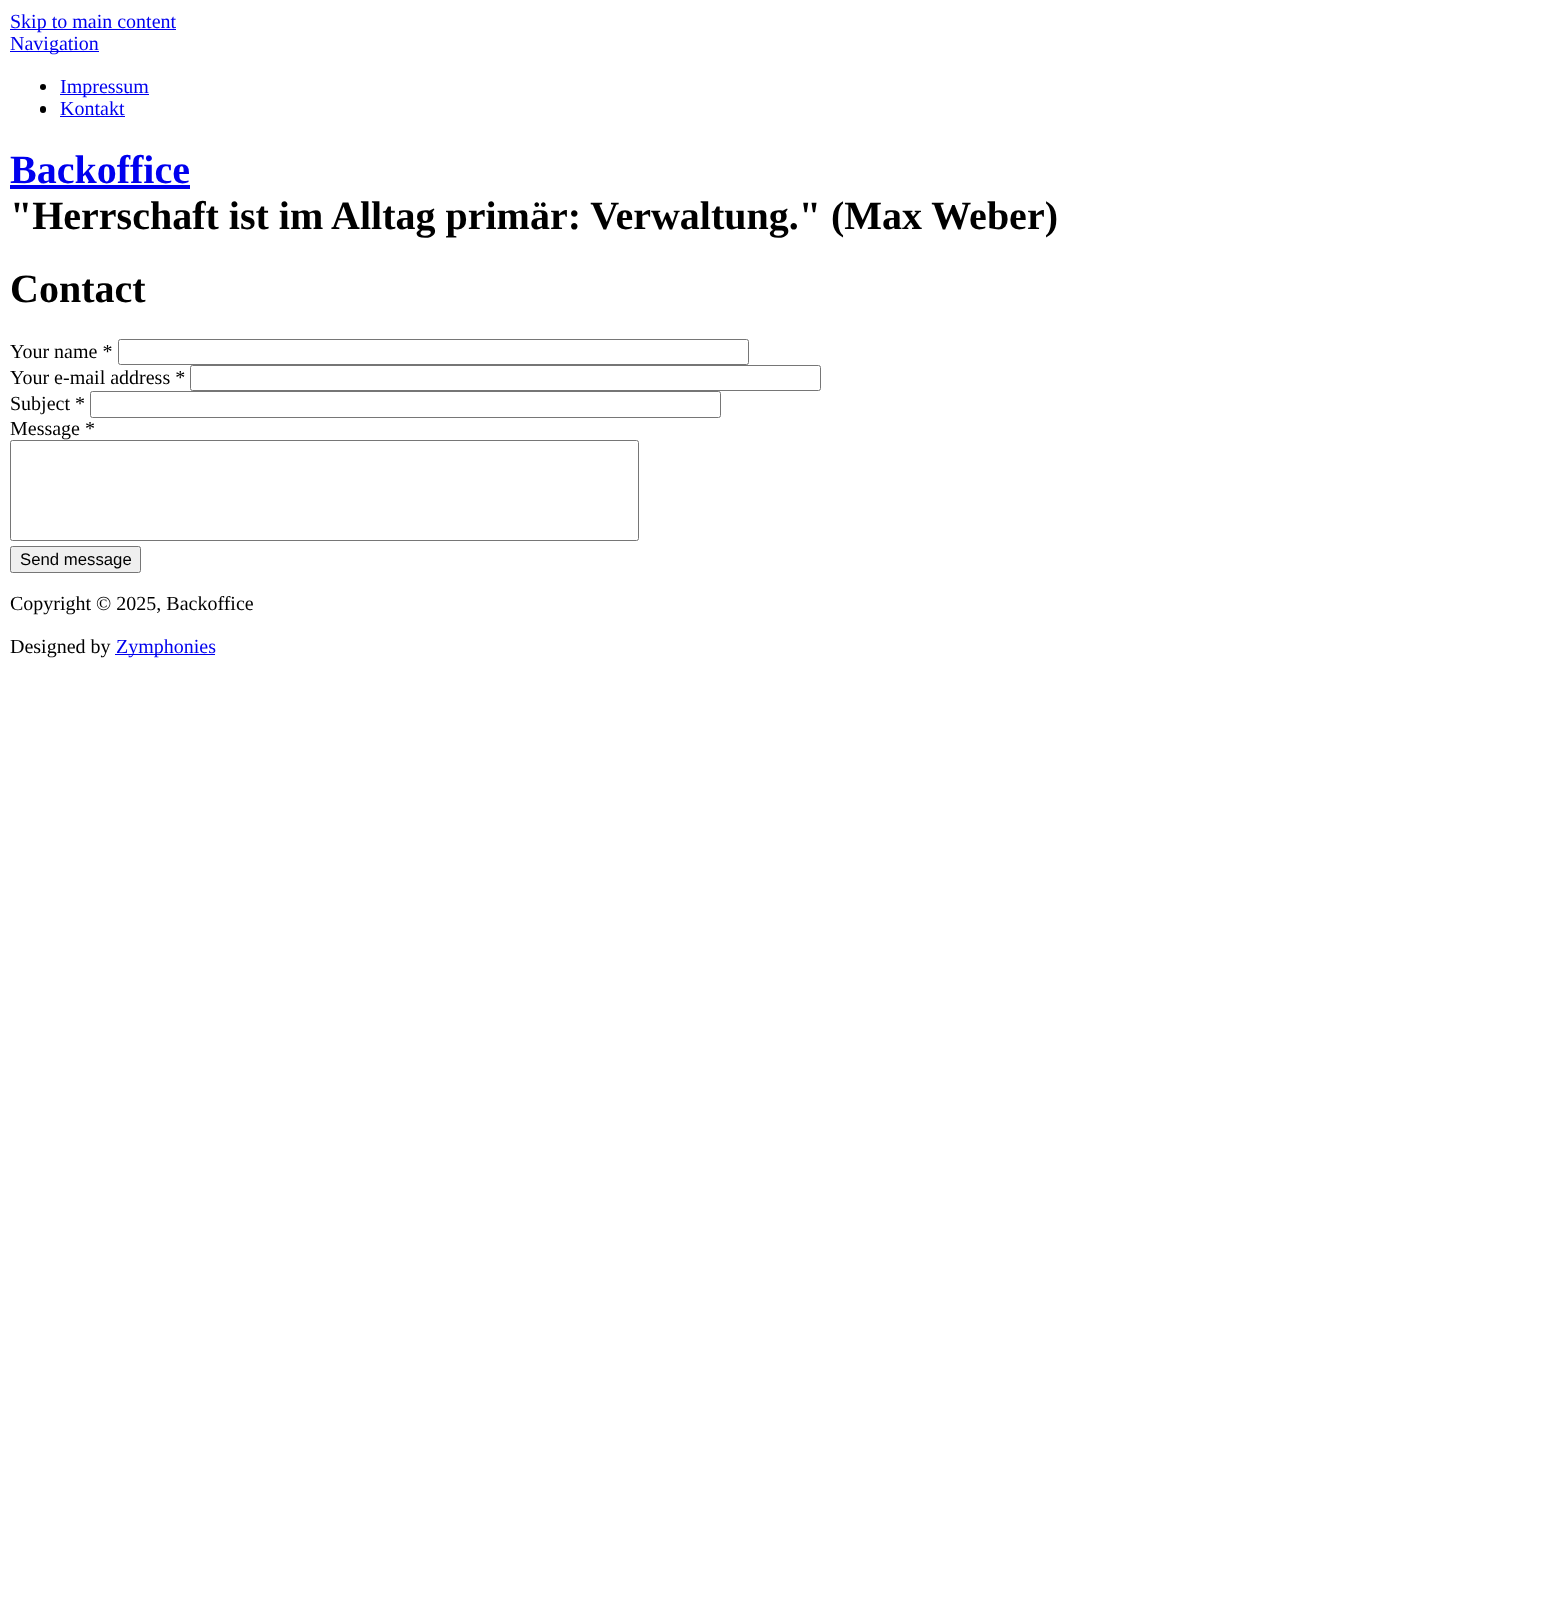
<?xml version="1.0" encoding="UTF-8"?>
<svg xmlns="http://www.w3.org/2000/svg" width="1547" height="1620">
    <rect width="100%" height="100%" fill="#FFFFFF"/>
    <rect x="10" y="29" width="166" height="1" fill="#0000EE"/>
    <text x="10" y="28" font-family="Liberation Serif" font-size="20" fill="#0000EE">Skip to main content</text>
    <rect x="10" y="51" width="89" height="1" fill="#0000EE"/>
    <text x="10" y="50" font-family="Liberation Serif" font-size="20" fill="#0000EE">Navigation</text>
    <circle cx="43" cy="87" r="3" fill="#000000"/>
    <rect x="60" y="94" width="89" height="1" fill="#0000EE"/>
    <text x="60" y="93" font-family="Liberation Serif" font-size="20" fill="#0000EE">Impressum</text>
    <rect x="40" y="106" width="6" height="7" rx="3" fill="#000000"/>
    <text x="60" y="115" font-family="Liberation Serif" font-size="20" fill="#0000EE">Kontakt</text>
    <rect x="60" y="116" width="65" height="1" fill="#0000EE"/>
    <text x="10" y="183" font-family="Liberation Serif" font-size="40" font-weight="700" fill="#0000EE">Backoffice</text>
    <rect x="10" y="185" width="180" height="4" fill="#0000EE"/>
    <text font-family="Liberation Serif" font-size="40" font-weight="700" fill="#000000">
        <tspan x="10" y="229">"Herrschaft ist im Alltag primär: Verwaltung." (Max Weber)</tspan>
        <tspan x="10" y="302">Contact</tspan>
    </text>
    <text x="10" y="358" font-family="Liberation Serif" font-size="20" fill="#000000">Your name *</text>
    <rect x="118.5" y="339.5" width="630" height="25" rx="2" fill="none" stroke="#767676"/>
    <text x="10" y="384" font-family="Liberation Serif" font-size="20" fill="#000000">Your e-mail address *</text>
    <rect x="190.5" y="365.5" width="630" height="25" rx="2" fill="none" stroke="#767676"/>
    <text x="10" y="410" font-family="Liberation Serif" font-size="20" fill="#000000">Subject *</text>
    <rect x="90.5" y="391.5" width="630" height="26" rx="2" fill="none" stroke="#767676"/>
    <text x="10" y="435" font-family="Liberation Serif" font-size="20" fill="#000000">Message *</text>
    <rect x="10.5" y="440.5" width="628" height="100" rx="2" fill="none" stroke="#767676"/>
    <rect x="10.5" y="546.5" width="130" height="26" rx="2" fill="#EFEFEF" stroke="#767676"/>
    <text x="20" y="565" font-family="Liberation Sans" font-size="16.75" fill="#000000">Send message</text>
    <text x="10" y="610" font-family="Liberation Serif" font-size="20" fill="#000000">Copyright © 2025, Backoffice</text>
    <text x="10" y="653" font-family="Liberation Serif" font-size="20" fill="#000000">Designed by</text>
    <rect x="115" y="654" width="100" height="1" fill="#0000EE"/>
    <text x="116" y="653" font-family="Liberation Serif" font-size="20" fill="#0000EE">Zymphonies</text>
</svg>
